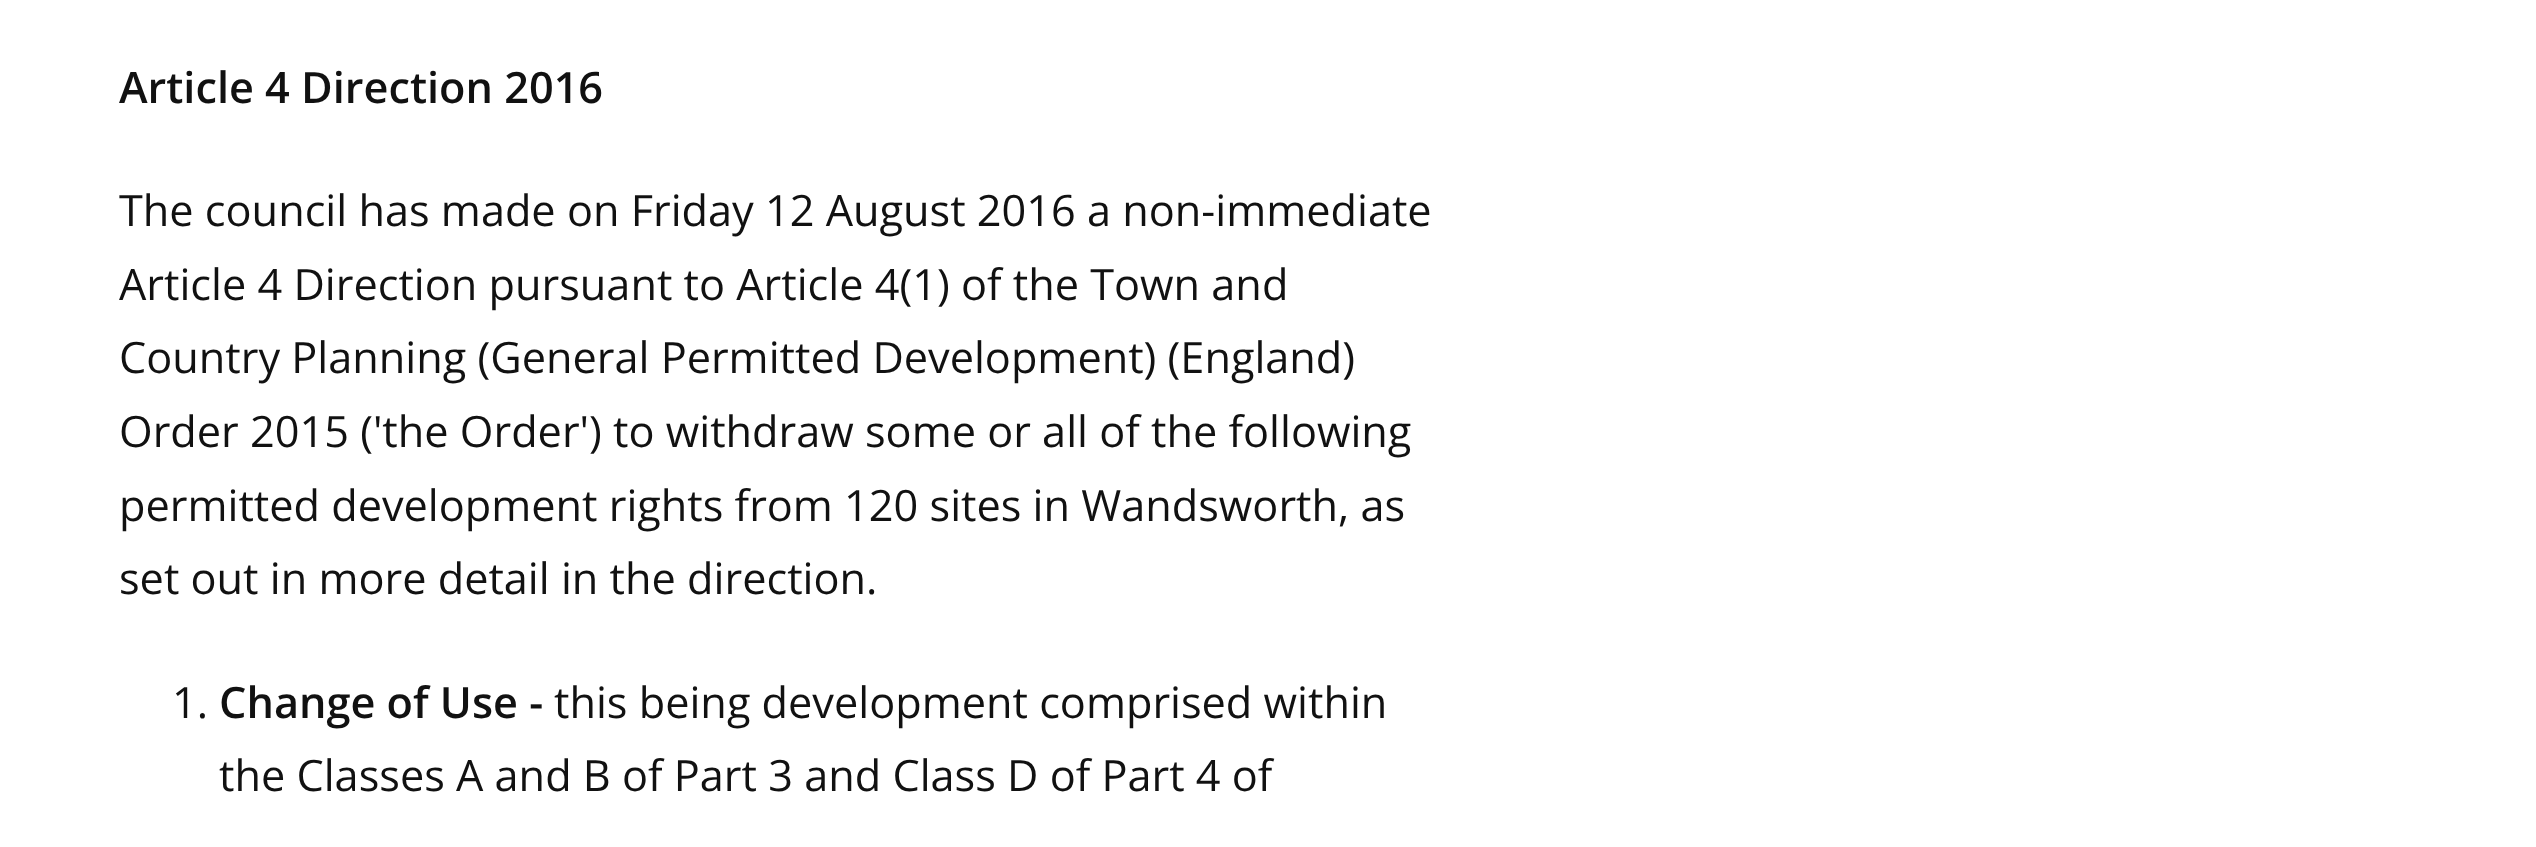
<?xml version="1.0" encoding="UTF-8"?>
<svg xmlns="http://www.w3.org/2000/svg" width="2536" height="847">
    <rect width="100%" height="100%" fill="#FFFFFF"/>
    <text x="119" y="103" font-family="Open Sans" font-size="43.25" font-weight="600" fill="#111111">Article 4 Direction 2016</text>
    <text font-family="Open Sans" font-size="43.25" fill="#111111">
        <tspan x="119" y="226">The council has made on Friday 12 August 2016 a non-immediate</tspan>
        <tspan x="119" y="300">Article 4 Direction pursuant to Article 4(1) of the Town and</tspan>
        <tspan x="119" y="373">Country Planning (General Permitted Development) (England)</tspan>
        <tspan x="119" y="447">Order 2015 ('the Order') to withdraw some or all of the following</tspan>
        <tspan x="119" y="521">permitted development rights from 120 sites in Wandsworth, as</tspan>
        <tspan x="119" y="594">set out in more detail in the direction.</tspan>
    </text>
    <text x="172" y="718" font-family="Open Sans" font-size="43.25" fill="#111111">1.</text>
    <text x="219" y="718" font-family="Open Sans" font-size="43.25" font-weight="600" fill="#111111">Change of Use -</text>
    <text x="554" y="718" font-family="Open Sans" font-size="43.25" fill="#111111">this being development comprised within</text>
    <text x="219" y="791" font-family="Open Sans" font-size="43.25" fill="#111111">the Classes A and B of Part 3 and Class D of Part 4 of</text>
</svg>
